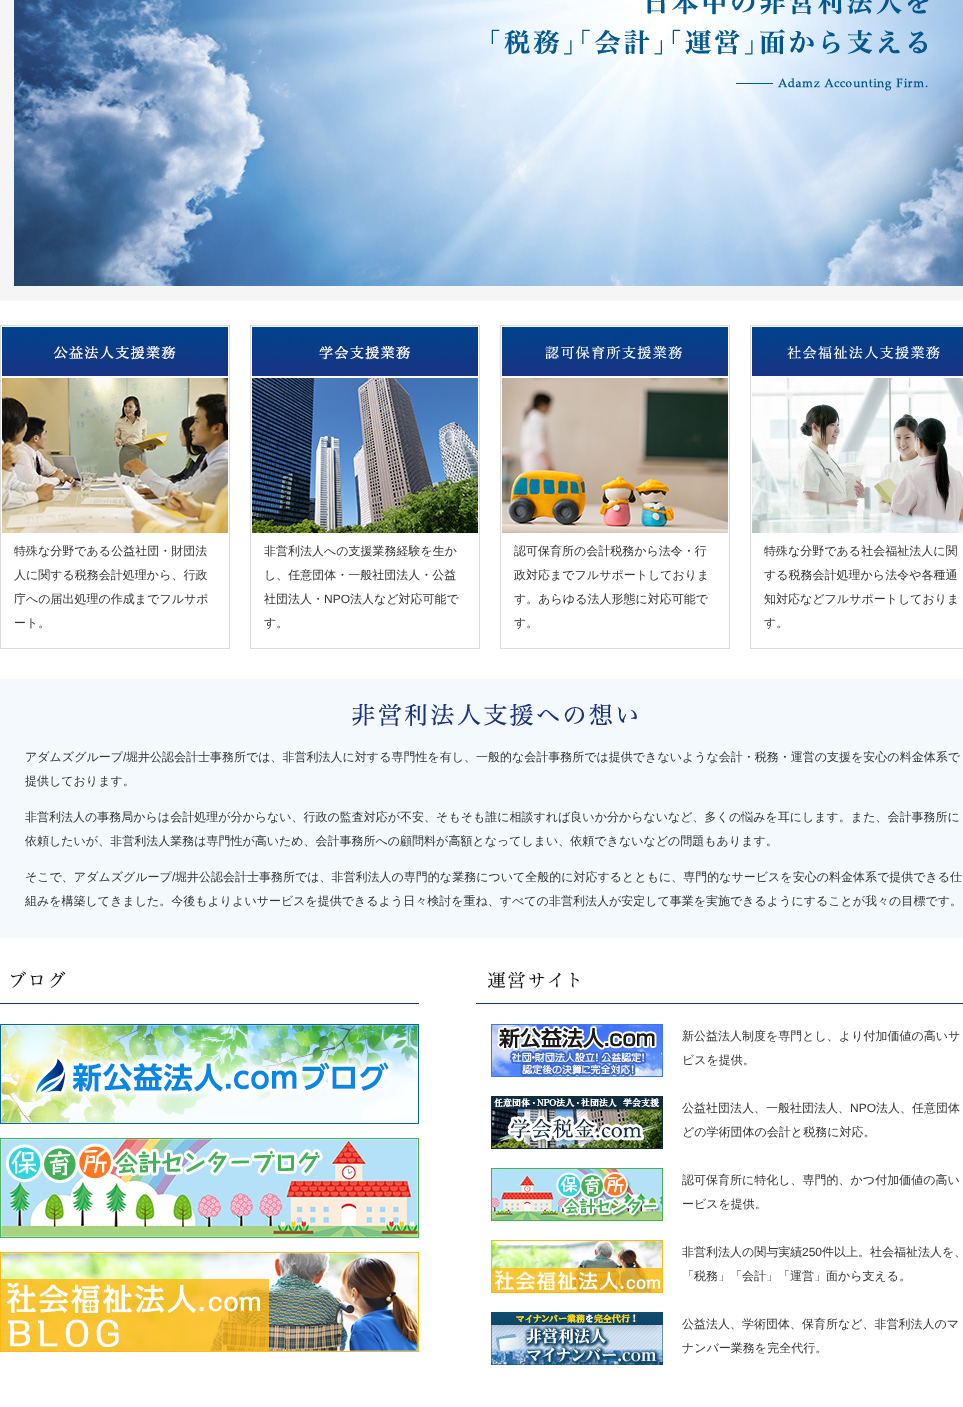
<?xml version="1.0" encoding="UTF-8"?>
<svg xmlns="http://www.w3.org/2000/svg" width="963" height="1407">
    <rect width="100%" height="100%" fill="#FFFFFF"/>
    <image x="0" y="0" width="963" height="301" href="img_01.png"/>
    <rect x="0.5" y="325.5" width="229" height="323" fill="none" stroke="#DCDCDC"/>
    <image x="2" y="327" width="226" height="206" href="img_02.png"/>
    <text x="14" y="555" font-family="WenQuanYi Zen Hei" font-size="12" font-weight="500" fill="#353535">特殊な分野である公益社団・財団法</text>
    <text x="14" y="579" font-family="WenQuanYi Zen Hei" font-size="12" font-weight="500" fill="#353535">人に関する税務会計処理から、行政</text>
    <text x="14" y="603" font-family="WenQuanYi Zen Hei" font-size="12" font-weight="500" fill="#353535">庁への届出処理の作成までフルサポ</text>
    <text x="14" y="627" font-family="WenQuanYi Zen Hei" font-size="12" font-weight="500" fill="#353535">ート。</text>
    <rect x="250.5" y="325.5" width="229" height="323" fill="none" stroke="#DCDCDC"/>
    <image x="252" y="327" width="226" height="206" href="img_03.png"/>
    <text x="264" y="555" font-family="WenQuanYi Zen Hei" font-size="12" font-weight="500" fill="#353535">非営利法人への支援業務経験を生か</text>
    <text x="264" y="579" font-family="WenQuanYi Zen Hei" font-size="12" font-weight="500" fill="#353535">し、任意団体・一般社団法人・公益</text>
    <text x="264" y="603" font-family="WenQuanYi Zen Hei" font-size="12" font-weight="500" fill="#353535">社団法人・</text>
    <text x="324" y="603" font-family="Liberation Sans" font-size="12" fill="#353535">NPO</text>
    <text x="350" y="603" font-family="WenQuanYi Zen Hei" font-size="12" font-weight="500" fill="#353535">法人など対応可能で</text>
    <text x="264" y="627" font-family="WenQuanYi Zen Hei" font-size="12" font-weight="500" fill="#353535">す。</text>
    <rect x="500.5" y="325.5" width="229" height="323" fill="none" stroke="#DCDCDC"/>
    <image x="502" y="327" width="226" height="206" href="img_04.png"/>
    <text x="514" y="555" font-family="WenQuanYi Zen Hei" font-size="12" font-weight="500" fill="#353535">認可保育所の会計税務から法令・行</text>
    <text x="514" y="579" font-family="WenQuanYi Zen Hei" font-size="12" font-weight="500" fill="#353535">政対応までフルサポートしておりま</text>
    <text x="514" y="603" font-family="WenQuanYi Zen Hei" font-size="12" font-weight="500" fill="#353535">す。あらゆる法人形態に対応可能で</text>
    <text x="514" y="627" font-family="WenQuanYi Zen Hei" font-size="12" font-weight="500" fill="#353535">す。</text>
    <rect x="750.5" y="325.5" width="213" height="323" fill="none" stroke="#DCDCDC"/>
    <image x="752" y="327" width="211" height="206" href="img_05.png"/>
    <text x="764" y="555" font-family="WenQuanYi Zen Hei" font-size="12" font-weight="500" fill="#353535">特殊な分野である社会福祉法人に関</text>
    <text x="764" y="579" font-family="WenQuanYi Zen Hei" font-size="12" font-weight="500" fill="#353535">する税務会計処理から法令や各種通</text>
    <text x="764" y="603" font-family="WenQuanYi Zen Hei" font-size="12" font-weight="500" fill="#353535">知対応などフルサポートしておりま</text>
    <text x="764" y="627" font-family="WenQuanYi Zen Hei" font-size="12" font-weight="500" fill="#353535">す。</text>
    <rect x="0" y="679" width="963" height="259" fill="#F3F9FC"/>
    <image x="352" y="704" width="285" height="22" href="img_06.png"/>
    <text x="25" y="761" font-family="WenQuanYi Zen Hei" font-size="12" font-weight="500" fill="#353535">アダムズグループ</text>
    <text x="123" y="761" font-family="Liberation Sans" font-size="12" fill="#353535">/</text>
    <text x="126" y="761" font-family="WenQuanYi Zen Hei" font-size="12" font-weight="500" fill="#353535">堀井公認会計士事務所では、非営利法人に対する専門性を有し、一般的な会計事務所では提供できないような会計・税務・運営の支援を安心の料金体系で</text>
    <text x="25" y="785" font-family="WenQuanYi Zen Hei" font-size="12" font-weight="500" fill="#353535">提供しております。</text>
    <text x="25" y="821" font-family="WenQuanYi Zen Hei" font-size="12" font-weight="500" fill="#353535">非営利法人の事務局からは会計処理が分からない、行政の監査対応が不安、そもそも誰に相談すれば良いか分からないなど、多くの悩みを耳にします。また、会計事務所に</text>
    <text x="25" y="845" font-family="WenQuanYi Zen Hei" font-size="12" font-weight="500" fill="#353535">依頼したいが、非営利法人業務は専門性が高いため、会計事務所への顧問料が高額となってしまい、依頼できないなどの問題もあります。</text>
    <text x="25" y="881" font-family="WenQuanYi Zen Hei" font-size="12" font-weight="500" fill="#353535">そこで、アダムズグループ</text>
    <text x="172" y="881" font-family="Liberation Sans" font-size="12" fill="#353535">/</text>
    <text x="175" y="881" font-family="WenQuanYi Zen Hei" font-size="12" font-weight="500" fill="#353535">堀井公認会計士事務所では、非営利法人の専門的な業務について全般的に対応するとともに、専門的なサービスを安心の料金体系で提供できる仕</text>
    <text x="25" y="905" font-family="WenQuanYi Zen Hei" font-size="12" font-weight="500" fill="#353535">組みを構築してきました。今後もよりよいサービスを提供できるよう日々検討を重ね、すべての非営利法人が安定して事業を実施できるようにすることが我々の目標です。</text>
    <image x="0" y="971" width="419" height="33" href="img_07.png"/>
    <image x="0" y="1024" width="419" height="100" href="img_08.png"/>
    <image x="0" y="1138" width="419" height="100" href="img_09.png"/>
    <image x="0" y="1252" width="419" height="100" href="img_10.png"/>
    <image x="476" y="971" width="487" height="33" href="img_11.png"/>
    <image x="491" y="1024" width="172" height="53" href="img_12.png"/>
    <text x="682" y="1040" font-family="WenQuanYi Zen Hei" font-size="12" font-weight="500" fill="#353535">新公益法人制度を専門とし、より付加価値の高いサ</text>
    <text x="682" y="1064" font-family="WenQuanYi Zen Hei" font-size="12" font-weight="500" fill="#353535">ビスを提供。</text>
    <image x="491" y="1096" width="172" height="53" href="img_13.png"/>
    <text x="682" y="1112" font-family="WenQuanYi Zen Hei" font-size="12" font-weight="500" fill="#353535">公益社団法人、一般社団法人、</text>
    <text x="850" y="1112" font-family="Liberation Sans" font-size="12" fill="#353535">NPO</text>
    <text x="876" y="1112" font-family="WenQuanYi Zen Hei" font-size="12" font-weight="500" fill="#353535">法人、任意団体</text>
    <text x="682" y="1136" font-family="WenQuanYi Zen Hei" font-size="12" font-weight="500" fill="#353535">どの学術団体の会計と税務に対応。</text>
    <image x="491" y="1168" width="172" height="53" href="img_14.png"/>
    <text x="682" y="1184" font-family="WenQuanYi Zen Hei" font-size="12" font-weight="500" fill="#353535">認可保育所に特化し、専門的、かつ付加価値の高い</text>
    <text x="682" y="1208" font-family="WenQuanYi Zen Hei" font-size="12" font-weight="500" fill="#353535">ービスを提供。</text>
    <image x="491" y="1240" width="172" height="53" href="img_15.png"/>
    <text x="682" y="1256" font-family="WenQuanYi Zen Hei" font-size="12" font-weight="500" fill="#353535">非営利法人の関与実績</text>
    <text x="802" y="1256" font-family="Liberation Sans" font-size="12" fill="#353535">250</text>
    <text x="822" y="1256" font-family="WenQuanYi Zen Hei" font-size="12" font-weight="500" fill="#353535">件以上。社会福祉法人を、</text>
    <text x="682" y="1280" font-family="WenQuanYi Zen Hei" font-size="12" font-weight="500" fill="#353535">「税務」「会計」「運営」面から支える。</text>
    <image x="491" y="1312" width="172" height="53" href="img_16.png"/>
    <text x="682" y="1328" font-family="WenQuanYi Zen Hei" font-size="12" font-weight="500" fill="#353535">公益法人、学術団体、保育所など、非営利法人のマ</text>
    <text x="682" y="1352" font-family="WenQuanYi Zen Hei" font-size="12" font-weight="500" fill="#353535">ナンバー業務を完全代行。</text>
</svg>
